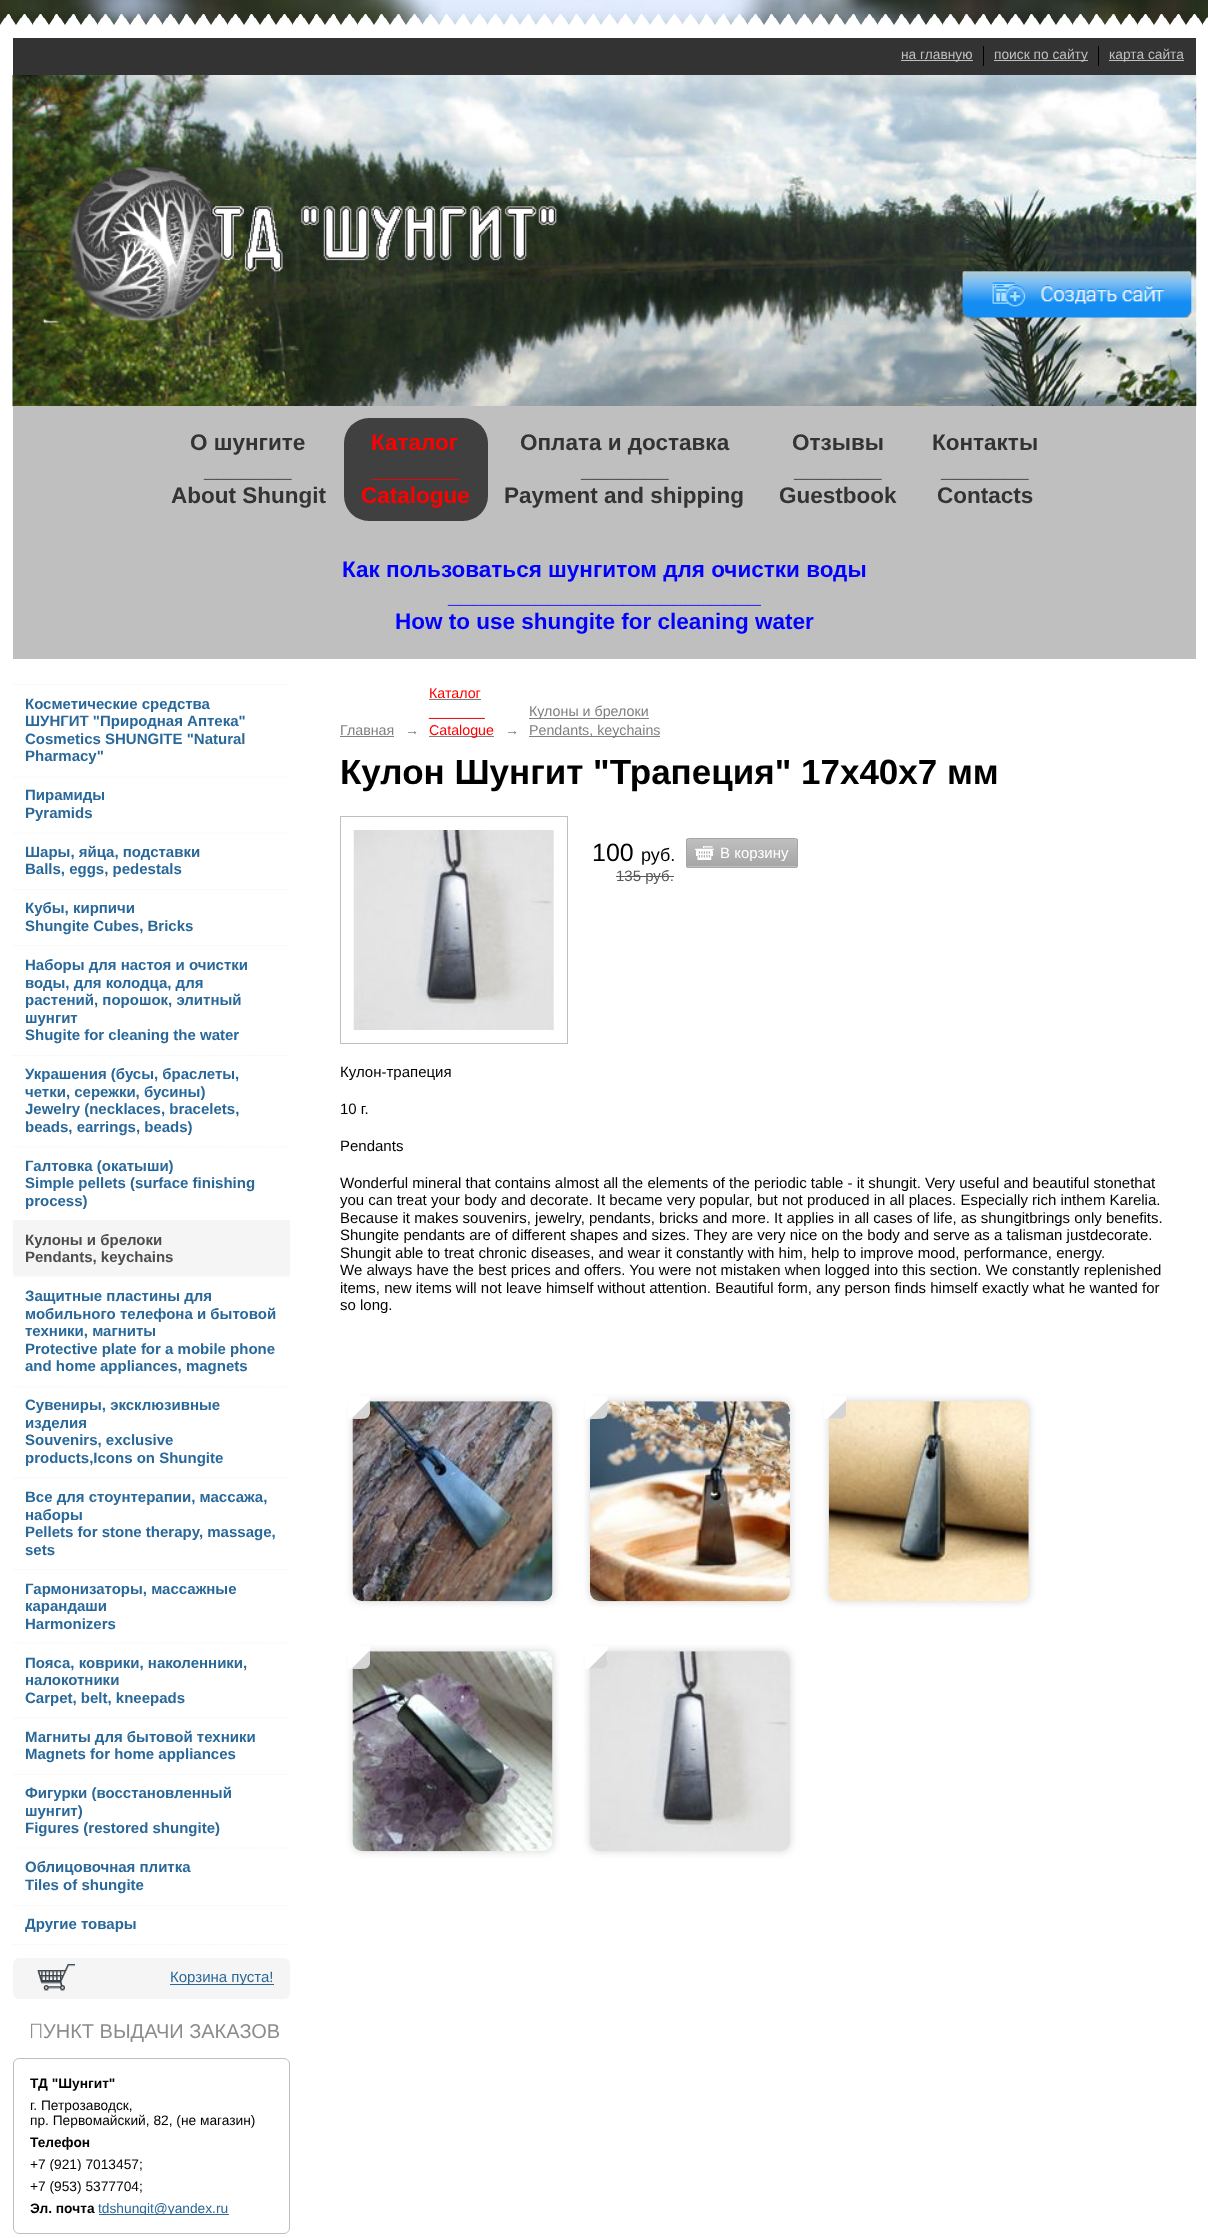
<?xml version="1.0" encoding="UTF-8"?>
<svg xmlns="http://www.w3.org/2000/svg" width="1208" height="2238">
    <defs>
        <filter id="blur1" x="-50%" y="-200%" width="200%" height="500%"><feGaussianBlur stdDeviation="9"/></filter>
        <clipPath id="clip1"><rect x="30" y="2156" width="243" height="15"/></clipPath>
        <clipPath id="clip2"><rect x="30" y="2200" width="243" height="15"/></clipPath>
        <linearGradient id="g1" gradientUnits="userSpaceOnUse" x1="742" y1="839" x2="742" y2="866"><stop offset="0" stop-color="#BFBFBF"/><stop offset="1" stop-color="#A6A6A6"/></linearGradient>
        <clipPath id="clip3"><rect x="686" y="838" width="112" height="30" rx="2.5"/></clipPath>
        <linearGradient id="g2" gradientUnits="userSpaceOnUse" x1="742" y1="866" x2="742" y2="894"><stop offset="0" stop-color="#BFBFBF"/><stop offset="1" stop-color="#A6A6A6"/></linearGradient>
        <filter id="blur2" x="-50%" y="-200%" width="200%" height="500%"><feGaussianBlur stdDeviation="4.5"/></filter>
    </defs>
    <rect width="100%" height="100%" fill="#FFFFFF"/>
    <image x="0" y="0" width="1208" height="25" href="img_01.png"/>
    <rect x="0" y="25" width="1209" height="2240" fill="#000000" fill-opacity="0.2" filter="url(#blur1)"/>
    <rect x="0" y="25" width="1208" height="2213" fill="#FFFFFF"/>
    <image x="0" y="14" width="1208" height="11" href="img_02.png"/>
    <rect x="13" y="38" width="1183" height="37" fill="#333333"/>
    <rect x="901" y="60" width="72" height="1" fill="#BFBFBF"/>
    <text x="901" y="59" font-family="Liberation Sans" font-size="13.75" fill="#BFBFBF">на главную</text>
    <rect x="983" y="46" width="1" height="20" fill="#000000"/>
    <rect x="994" y="60" width="94" height="1" fill="#BFBFBF"/>
    <text x="994" y="59" font-family="Liberation Sans" font-size="13.75" fill="#BFBFBF">поиск по сайту</text>
    <rect x="1098" y="46" width="1" height="20" fill="#000000"/>
    <rect x="1109" y="60" width="75" height="1" fill="#BFBFBF"/>
    <text x="1109" y="59" font-family="Liberation Sans" font-size="13.75" fill="#BFBFBF">карта сайта</text>
    <image x="12" y="75" width="1185" height="332" href="img_03.png"/>
    <image x="43" y="166" width="514" height="157" href="img_04.png"/>
    <image x="962" y="271" width="230" height="47" href="img_05.png"/>
    <rect x="13" y="406" width="1183" height="253" fill="#BFBFBF"/>
    <text x="190" y="450" font-family="Liberation Sans" font-size="22.5" font-weight="700" fill="#333333">О шунгите</text>
    <text x="204" y="477" font-family="Liberation Sans" font-size="22.5" font-weight="700" fill="#333333">_______</text>
    <text x="171" y="503" font-family="Liberation Sans" font-size="22.5" font-weight="700" fill="#333333">About Shungit</text>
    <rect x="344" y="418" width="144" height="103" rx="25" fill="#404040"/>
    <text font-family="Liberation Sans" font-size="22.5" font-weight="700" fill="#FF0000">
        <tspan x="371" y="450">Каталог</tspan>
        <tspan x="371" y="477">_______</tspan>
    </text>
    <text x="361" y="503" font-family="Liberation Sans" font-size="22.5" font-weight="700" fill="#FF0000">Catalogue</text>
    <text x="520" y="450" font-family="Liberation Sans" font-size="22.5" font-weight="700" fill="#333333">Оплата и доставка</text>
    <text x="581" y="477" font-family="Liberation Sans" font-size="22.5" font-weight="700" fill="#333333">_______</text>
    <text x="504" y="503" font-family="Liberation Sans" font-size="22.5" font-weight="700" fill="#333333">Payment and shipping</text>
    <text x="792" y="450" font-family="Liberation Sans" font-size="22.5" font-weight="700" fill="#333333">Отзывы</text>
    <text x="794" y="477" font-family="Liberation Sans" font-size="22.5" font-weight="700" fill="#333333">_______</text>
    <text x="779" y="503" font-family="Liberation Sans" font-size="22.5" font-weight="700" fill="#333333">Guestbook</text>
    <text x="932" y="450" font-family="Liberation Sans" font-size="22.5" font-weight="700" fill="#333333">Контакты</text>
    <text x="941" y="477" font-family="Liberation Sans" font-size="22.5" font-weight="700" fill="#333333">_______</text>
    <text x="937" y="503" font-family="Liberation Sans" font-size="22.5" font-weight="700" fill="#333333">Contacts</text>
    <text x="342" y="577" font-family="Liberation Sans" font-size="22.5" font-weight="700" fill="#0000FF">Как пользоваться шунгитом для очистки воды</text>
    <text x="448" y="603" font-family="Liberation Sans" font-size="22.5" font-weight="700" fill="#0000FF">_________________________</text>
    <text x="395" y="629" font-family="Liberation Sans" font-size="22.5" font-weight="700" fill="#0000FF">How to use shungite for cleaning water</text>
    <path d="M 12.5 1944.5 H 290" fill="none" stroke="#F5F5F5" stroke-width="1.2" stroke-dasharray="1.25 1.25"/>
    <path d="M 12.5 684.5 H 290" fill="none" stroke="#F5F5F5" stroke-width="1.2" stroke-dasharray="1.25 1.25"/>
    <text font-family="Liberation Sans" font-size="15" font-weight="700" fill="#296899">
        <tspan x="25" y="709">Косметические средства</tspan>
        <tspan x="25" y="726">ШУНГИТ "Природная Аптека"</tspan>
        <tspan x="25" y="744">Cosmetics SHUNGITE "Natural</tspan>
        <tspan x="25" y="761">Pharmacy"</tspan>
    </text>
    <path d="M 12.5 777 H 290" fill="none" stroke="#F5F5F5" stroke-width="1.2" stroke-dasharray="1.25 1.25"/>
    <text font-family="Liberation Sans" font-size="15" font-weight="700" fill="#296899">
        <tspan x="25" y="800">Пирамиды</tspan>
        <tspan x="25" y="818">Pyramids</tspan>
    </text>
    <path d="M 12.5 833 H 290" fill="none" stroke="#F5F5F5" stroke-width="1.2" stroke-dasharray="1.25 1.25"/>
    <text font-family="Liberation Sans" font-size="15" font-weight="700" fill="#296899">
        <tspan x="25" y="857">Шары, яйца, подставки</tspan>
        <tspan x="25" y="874">Balls, eggs, pedestals</tspan>
    </text>
    <path d="M 12.5 889.5 H 290" fill="none" stroke="#F5F5F5" stroke-width="1.2" stroke-dasharray="1.25 1.25"/>
    <text font-family="Liberation Sans" font-size="15" font-weight="700" fill="#296899">
        <tspan x="25" y="913">Кубы, кирпичи</tspan>
        <tspan x="25" y="931">Shungite Cubes, Bricks</tspan>
    </text>
    <path d="M 12.5 945.5 H 290" fill="none" stroke="#F5F5F5" stroke-width="1.2" stroke-dasharray="1.25 1.25"/>
    <text font-family="Liberation Sans" font-size="15" font-weight="700" fill="#296899">
        <tspan x="25" y="970">Наборы для настоя и очистки</tspan>
        <tspan x="25" y="988">воды, для колодца, для</tspan>
        <tspan x="25" y="1005">растений, порошок, элитный</tspan>
        <tspan x="25" y="1023">шунгит</tspan>
        <tspan x="25" y="1040">Shugite for cleaning the water</tspan>
    </text>
    <path d="M 12.5 1055.5 H 290" fill="none" stroke="#F5F5F5" stroke-width="1.2" stroke-dasharray="1.25 1.25"/>
    <text font-family="Liberation Sans" font-size="15" font-weight="700" fill="#296899">
        <tspan x="25" y="1079">Украшения (бусы, браслеты,</tspan>
        <tspan x="25" y="1097">четки, сережки, бусины)</tspan>
        <tspan x="25" y="1114">Jewelry (necklaces, bracelets,</tspan>
        <tspan x="25" y="1132">beads, earrings, beads)</tspan>
    </text>
    <path d="M 12.5 1147 H 290" fill="none" stroke="#F5F5F5" stroke-width="1.2" stroke-dasharray="1.25 1.25"/>
    <text font-family="Liberation Sans" font-size="15" font-weight="700" fill="#296899">
        <tspan x="25" y="1171">Галтовка (окатыши)</tspan>
        <tspan x="25" y="1188">Simple pellets (surface finishing</tspan>
        <tspan x="25" y="1206">process)</tspan>
    </text>
    <rect x="13" y="1220" width="277" height="56" fill="#F5F5F5"/>
    <path d="M 12.5 1220.5 H 290" fill="none" stroke="#F5F5F5" stroke-width="1.2" stroke-dasharray="1.25 1.25"/>
    <text font-family="Liberation Sans" font-size="15" font-weight="700" fill="#4D4D4D">
        <tspan x="25" y="1245">Кулоны и брелоки</tspan>
        <tspan x="25" y="1262">Pendants, keychains</tspan>
    </text>
    <path d="M 12.5 1277 H 290" fill="none" stroke="#F5F5F5" stroke-width="1.2" stroke-dasharray="1.25 1.25"/>
    <text font-family="Liberation Sans" font-size="15" font-weight="700" fill="#296899">
        <tspan x="25" y="1301">Защитные пластины для</tspan>
        <tspan x="25" y="1319">мобильного телефона и бытовой</tspan>
        <tspan x="25" y="1336">техники, магниты</tspan>
        <tspan x="25" y="1354">Protective plate for a mobile phone</tspan>
        <tspan x="25" y="1371">and home appliances, magnets</tspan>
    </text>
    <path d="M 12.5 1387 H 290" fill="none" stroke="#F5F5F5" stroke-width="1.2" stroke-dasharray="1.25 1.25"/>
    <text font-family="Liberation Sans" font-size="15" font-weight="700" fill="#296899">
        <tspan x="25" y="1410">Сувениры, эксклюзивные</tspan>
        <tspan x="25" y="1428">изделия</tspan>
        <tspan x="25" y="1445">Souvenirs, exclusive</tspan>
        <tspan x="25" y="1463">products,Icons on Shungite</tspan>
    </text>
    <path d="M 12.5 1478 H 290" fill="none" stroke="#F5F5F5" stroke-width="1.2" stroke-dasharray="1.25 1.25"/>
    <text font-family="Liberation Sans" font-size="15" font-weight="700" fill="#296899">
        <tspan x="25" y="1502">Все для стоунтерапии, массажа,</tspan>
        <tspan x="25" y="1520">наборы</tspan>
        <tspan x="25" y="1537">Pellets for stone therapy, massage,</tspan>
        <tspan x="25" y="1555">sets</tspan>
    </text>
    <path d="M 12.5 1569.5 H 290" fill="none" stroke="#F5F5F5" stroke-width="1.2" stroke-dasharray="1.25 1.25"/>
    <text font-family="Liberation Sans" font-size="15" font-weight="700" fill="#296899">
        <tspan x="25" y="1594">Гармонизаторы, массажные</tspan>
        <tspan x="25" y="1611">карандаши</tspan>
        <tspan x="25" y="1629">Harmonizers</tspan>
    </text>
    <path d="M 12.5 1643 H 290" fill="none" stroke="#F5F5F5" stroke-width="1.2" stroke-dasharray="1.25 1.25"/>
    <text font-family="Liberation Sans" font-size="15" font-weight="700" fill="#296899">
        <tspan x="25" y="1668">Пояса, коврики, наколенники,</tspan>
        <tspan x="25" y="1685">налокотники</tspan>
        <tspan x="25" y="1703">Carpet, belt, kneepads</tspan>
    </text>
    <path d="M 12.5 1718 H 290" fill="none" stroke="#F5F5F5" stroke-width="1.2" stroke-dasharray="1.25 1.25"/>
    <text font-family="Liberation Sans" font-size="15" font-weight="700" fill="#296899">
        <tspan x="25" y="1742">Магниты для бытовой техники</tspan>
        <tspan x="25" y="1759">Magnets for home appliances</tspan>
    </text>
    <path d="M 12.5 1774.5 H 290" fill="none" stroke="#F5F5F5" stroke-width="1.2" stroke-dasharray="1.25 1.25"/>
    <text font-family="Liberation Sans" font-size="15" font-weight="700" fill="#296899">
        <tspan x="25" y="1798">Фигурки (восстановленный</tspan>
        <tspan x="25" y="1816">шунгит)</tspan>
        <tspan x="25" y="1833">Figures (restored shungite)</tspan>
    </text>
    <path d="M 12.5 1848 H 290" fill="none" stroke="#F5F5F5" stroke-width="1.2" stroke-dasharray="1.25 1.25"/>
    <text font-family="Liberation Sans" font-size="15" font-weight="700" fill="#296899">
        <tspan x="25" y="1872">Облицовочная плитка</tspan>
        <tspan x="25" y="1890">Tiles of shungite</tspan>
    </text>
    <path d="M 12.5 1905.5 H 290" fill="none" stroke="#F5F5F5" stroke-width="1.2" stroke-dasharray="1.25 1.25"/>
    <text x="25" y="1929" font-family="Liberation Sans" font-size="15" font-weight="700" fill="#296899">Другие товары</text>
    <rect x="13" y="1958" width="277" height="41" rx="6" fill="#F5F5F5"/>
    <image x="37" y="1964" width="38" height="27" href="img_06.png"/>
    <rect x="170" y="1984" width="104" height="1" fill="#296899"/>
    <text x="170" y="1982" font-family="Liberation Sans" font-size="15" fill="#296899">Корзина пуста!</text>
    <text x="29" y="2038" font-family="Noto Sans" font-size="20" font-weight="300" fill="#8C8C8C">П</text>
    <text x="43" y="2038" font-family="Liberation Sans" font-size="20" fill="#8C8C8C">УНКТ ВЫДАЧИ ЗАКАЗОВ</text>
    <rect x="13.5" y="2058.5" width="276" height="175" rx="5.5" fill="none" stroke="#BFBFBF"/>
    <text x="30" y="2088" font-family="Liberation Sans" font-size="13.75" font-weight="700" fill="#000000">ТД "Шунгит"</text>
    <text font-family="Liberation Sans" font-size="13.75" fill="#000000">
        <tspan x="30" y="2110">г. Петрозаводск,</tspan>
        <tspan x="30" y="2125">пр. Первомайский, 82, (не магазин)</tspan>
    </text>
    <text x="30" y="2147" font-family="Liberation Sans" font-size="13.75" font-weight="700" fill="#000000">Телефон</text>
    <g clip-path="url(#clip1)">
        <text x="30" y="2169" font-family="Liberation Sans" font-size="13.75" fill="#000000">+7 (921) 7013457;</text>
    </g>
    <text x="30" y="2191" font-family="Liberation Sans" font-size="13.75" fill="#000000">+7 (953) 5377704;</text>
    <text x="30" y="2213" font-family="Liberation Sans" font-size="13.75" font-weight="700" fill="#000000">Эл. почта</text>
    <rect x="99" y="2214" width="130" height="1" fill="#296899"/>
    <g clip-path="url(#clip2)">
        <text x="98" y="2213" font-family="Liberation Sans" font-size="13.75" fill="#296899">tdshungit@yandex.ru</text>
    </g>
    <text x="340" y="735" font-family="Liberation Sans" font-size="14.25" fill="#808080">Главная</text>
    <rect x="340" y="736" width="54" height="1" fill="#808080"/>
    <text x="405" y="735" font-family="Liberation Sans" font-size="14.25" font-style="italic" fill="#808080">→</text>
    <text x="429" y="698" font-family="Liberation Sans" font-size="14.25" fill="#FF0000">Каталог</text>
    <rect x="429" y="699" width="52" height="1" fill="#808080"/>
    <rect x="429" y="718" width="56" height="1" fill="#808080"/>
    <text x="429" y="716" font-family="Liberation Sans" font-size="14.25" fill="#FF0000">_______</text>
    <rect x="429" y="736" width="65" height="1" fill="#808080"/>
    <text x="429" y="735" font-family="Liberation Sans" font-size="14.25" fill="#FF0000">Catalogue</text>
    <text x="505" y="735" font-family="Liberation Sans" font-size="14.25" font-style="italic" fill="#808080">→</text>
    <rect x="529" y="718" width="120" height="1" fill="#808080"/>
    <text x="529" y="716" font-family="Liberation Sans" font-size="14.25" fill="#808080">Кулоны и брелоки</text>
    <rect x="529" y="736" width="131" height="1" fill="#808080"/>
    <text x="529" y="735" font-family="Liberation Sans" font-size="14.25" fill="#808080">Pendants, keychains</text>
    <text x="340" y="784" font-family="Liberation Sans" font-size="35" font-weight="700" fill="#000000">Кулон Шунгит "Трапеция" 17х40х7 мм</text>
    <rect x="340.5" y="816.5" width="227" height="227" fill="none" stroke="#BFBFBF"/>
    <image x="353" y="830" width="201" height="200" href="img_07.png"/>
    <text x="592" y="861" font-family="Liberation Sans" font-size="25" fill="#000000">100</text>
    <text x="641" y="861" font-family="Liberation Sans" font-size="18" fill="#000000">руб.</text>
    <text x="616" y="881" font-family="Liberation Sans" font-size="15" fill="#595959">135 руб.</text>
    <rect x="616" y="876" width="58" height="1" fill="#595959"/>
    <rect x="686" y="839" width="112" height="27" fill="url(#g1)"/>
    <g clip-path="url(#clip3)">
        <rect x="686" y="866" width="112" height="2" fill="url(#g2)"/>
    </g>
    <rect x="686.5" y="838.5" width="111" height="29" rx="2" fill="none" stroke="#A6A6A6"/>
    <image x="695" y="846" width="19" height="14" href="img_08.png"/>
    <text x="720" y="858" font-family="Liberation Sans" font-size="15" fill="#FFFFFF">В корзину</text>
    <text x="340" y="1077" font-family="Liberation Sans" font-size="15" fill="#000000">Кулон-трапеция</text>
    <text x="340" y="1114" font-family="Liberation Sans" font-size="15" fill="#000000">10 г.</text>
    <text x="340" y="1151" font-family="Liberation Sans" font-size="15" fill="#000000">Pendants</text>
    <text font-family="Liberation Sans" font-size="15" fill="#000000">
        <tspan x="340" y="1188">Wonderful mineral that contains almost all the elements of the periodic table - it shungit. Very useful and beautiful stonethat</tspan>
        <tspan x="340" y="1205">you can treat your body and decorate. It became very popular, but not produced in all places. Especially rich inthem Karelia.</tspan>
        <tspan x="340" y="1223">Because it makes souvenirs, jewelry, pendants, bricks and more. It applies in all cases of life, as shungitbrings only benefits.</tspan>
        <tspan x="340" y="1240">Shungite pendants are of different shapes and sizes. They are very nice on the body and serve as a talisman justdecorate.</tspan>
        <tspan x="340" y="1258">Shungit able to treat chronic diseases, and wear it constantly with him, help to improve mood, performance, energy.</tspan>
        <tspan x="340" y="1275">We always have the best prices and offers. You were not mistaken when logged into this section. We constantly replenished</tspan>
        <tspan x="340" y="1293">items, new items will not leave himself without attention. Beautiful form, any person finds himself exactly what he wanted for</tspan>
        <tspan x="340" y="1310">so long.</tspan>
    </text>
    <rect x="353" y="1401" width="200" height="200" rx="8" fill="#D4D4D4" filter="url(#blur2)"/>
    <image x="352" y="1401" width="201" height="201" href="img_10.png"/>
    <image x="348" y="1396" width="22" height="23" href="img_09.png"/>
    <rect x="590" y="1401" width="200" height="200" rx="8" fill="#D4D4D4" filter="url(#blur2)"/>
    <image x="590" y="1401" width="200" height="201" href="img_12.png"/>
    <image x="585" y="1396" width="23" height="23" href="img_11.png"/>
    <rect x="829" y="1401" width="200" height="200" rx="8" fill="#D4D4D4" filter="url(#blur2)"/>
    <image x="828" y="1401" width="201" height="200" href="img_14.png"/>
    <image x="824" y="1396" width="22" height="23" href="img_13.png"/>
    <rect x="353" y="1651" width="200" height="200" rx="8" fill="#D4D4D4" filter="url(#blur2)"/>
    <image x="352" y="1651" width="201" height="201" href="img_16.png"/>
    <image x="348" y="1646" width="22" height="23" href="img_15.png"/>
    <rect x="590" y="1651" width="200" height="200" rx="8" fill="#D4D4D4" filter="url(#blur2)"/>
    <image x="590" y="1651" width="200" height="200" href="img_18.png"/>
    <image x="585" y="1646" width="23" height="23" href="img_17.png"/>
</svg>
